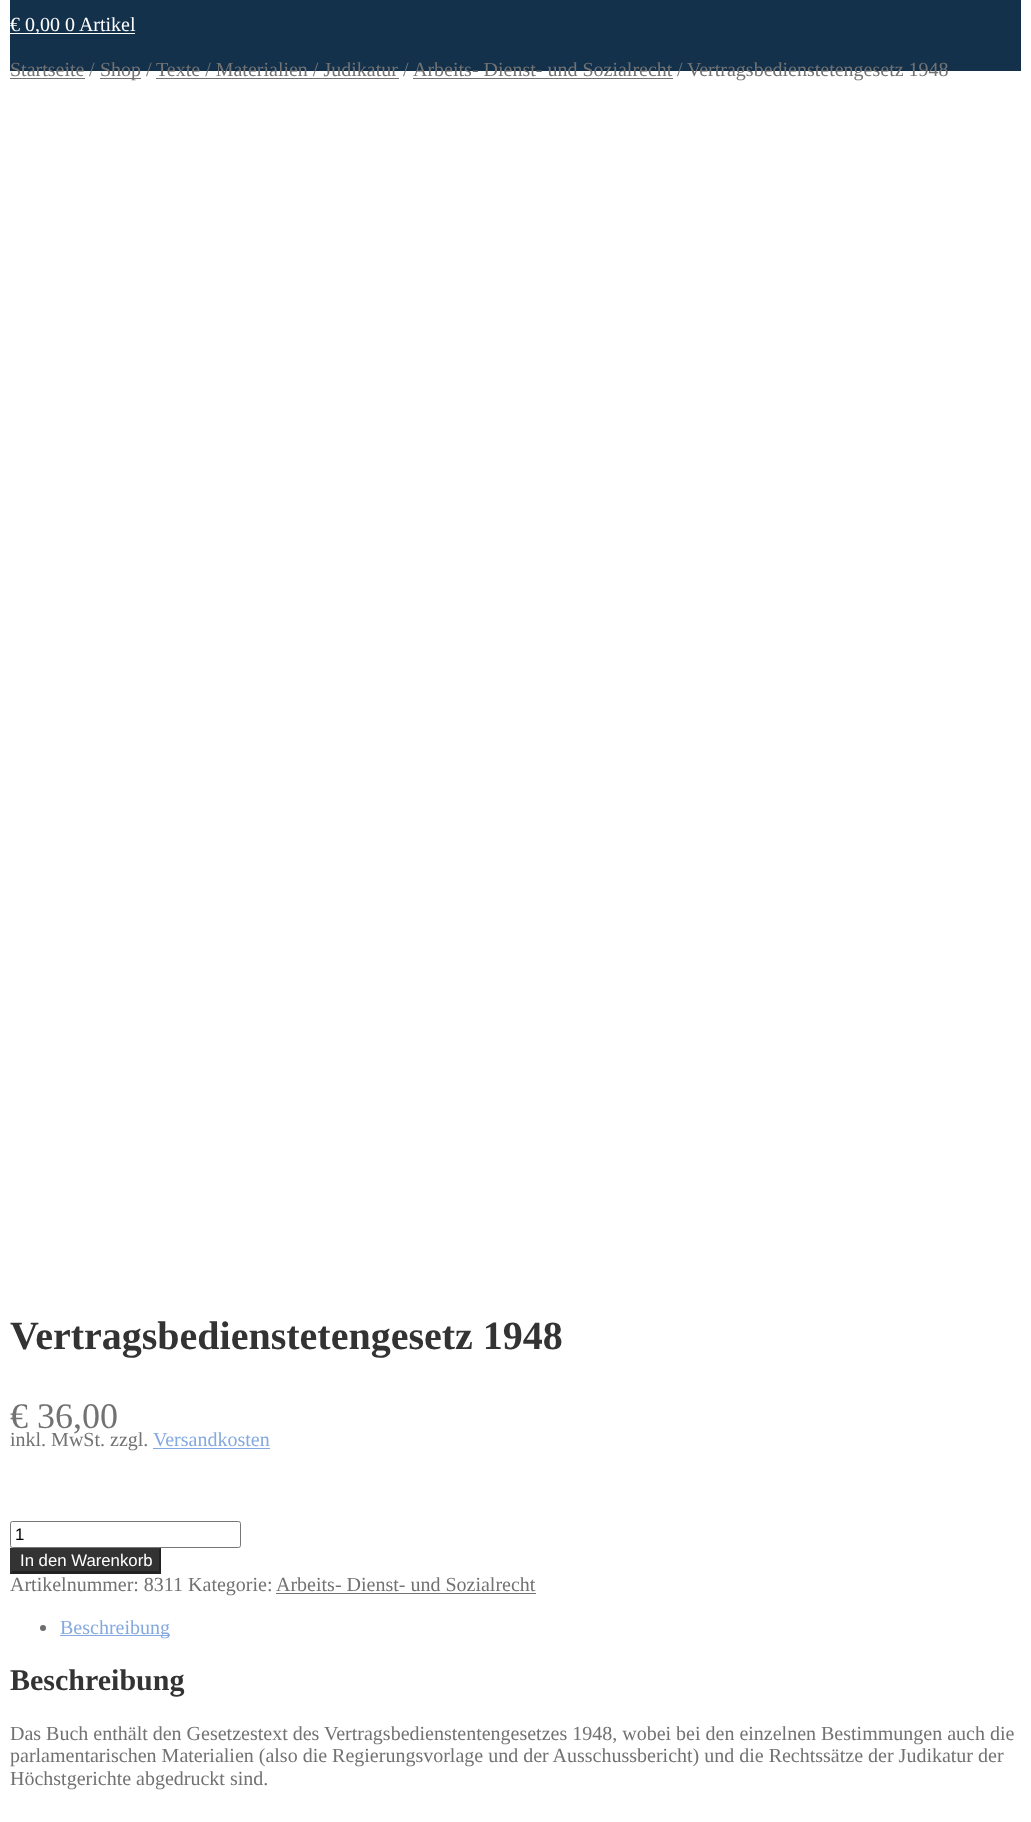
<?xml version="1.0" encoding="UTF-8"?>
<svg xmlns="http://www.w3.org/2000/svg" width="1031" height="1822">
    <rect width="100%" height="100%" fill="#FFFFFF"/>
    <rect x="10" y="0" width="1011" height="71" fill="#14314C"/>
    <rect x="10" y="33" width="125" height="1" fill="#FFFFFF"/>
    <text x="10" y="31" font-family="Liberation Serif" font-size="20" fill="#FFFFFF">€ 0,00 0 Artikel</text>
    <text x="10" y="76" font-family="Liberation Serif" font-size="20" fill="#727272">Startseite</text>
    <rect x="10" y="78" width="75" height="1" fill="#727272"/>
    <text x="89" y="76" font-family="Liberation Serif" font-size="20" fill="#727272">/</text>
    <rect x="100" y="78" width="41" height="1" fill="#727272"/>
    <text x="100" y="76" font-family="Liberation Serif" font-size="20" fill="#727272">Shop</text>
    <text x="146" y="76" font-family="Liberation Serif" font-size="20" fill="#727272">/</text>
    <text x="156" y="76" font-family="Liberation Serif" font-size="20" fill="#727272">Texte / Materialien / Judikatur</text>
    <rect x="156" y="78" width="243" height="1" fill="#727272"/>
    <text x="403" y="76" font-family="Liberation Serif" font-size="20" fill="#727272">/</text>
    <text x="413" y="76" font-family="Liberation Serif" font-size="20" fill="#727272">Arbeits- Dienst- und Sozialrecht</text>
    <rect x="413" y="78" width="260" height="1" fill="#727272"/>
    <text x="677" y="76" font-family="Liberation Serif" font-size="20" fill="#727272">/</text>
    <text x="687" y="76" font-family="Liberation Serif" font-size="20" fill="#727272">Vertragsbedienstetengesetz 1948</text>
    <text x="10" y="1349" font-family="Liberation Serif" font-size="40" font-weight="700" fill="#333333">Vertragsbedienstetengesetz 1948</text>
    <text x="10" y="1428" font-family="Liberation Serif" font-size="36" fill="#727272">€ 36,00</text>
    <text x="10" y="1446" font-family="Liberation Serif" font-size="20" fill="#727272">inkl. MwSt. zzgl.</text>
    <text x="153" y="1446" font-family="Liberation Serif" font-size="20" fill="#84A9E0">Versandkosten</text>
    <rect x="153" y="1448" width="117" height="1" fill="#84A9E0"/>
    <rect x="10.5" y="1521.5" width="230" height="26" rx="2" fill="none" stroke="#767676"/>
    <text x="15" y="1540" font-family="Liberation Sans" font-size="16.75" fill="#000000">1</text>
    <rect x="10" y="1548" width="151" height="26" fill="#333333"/>
    <path d="M 161 1547.5 V 1574 L 159 1571 V 1550 Z" fill="#222222"/>
    <path d="M 161 1574 H 10 L 12 1571 H 159 Z" fill="#222222"/>
    <path d="M 10 1574 V 1547.5 L 12.5 1550 V 1571 Z" fill="#333333"/>
    <text x="20" y="1566" font-family="Liberation Sans" font-size="16.75" fill="#FFFFFF">In den Warenkorb</text>
    <text x="10" y="1591" font-family="Liberation Serif" font-size="20" fill="#727272">Artikelnummer: 8311 Kategorie:</text>
    <text x="276" y="1591" font-family="Liberation Serif" font-size="20" fill="#727272">Arbeits- Dienst- und Sozialrecht</text>
    <rect x="276" y="1593" width="260" height="1" fill="#727272"/>
    <circle cx="43" cy="1628" r="3" fill="#6D6D6D"/>
    <rect x="60" y="1635" width="110" height="1" fill="#84A9E0"/>
    <text x="60" y="1634" font-family="Liberation Serif" font-size="20" fill="#84A9E0">Beschreibung</text>
    <text x="10" y="1690" font-family="Liberation Serif" font-size="30" font-weight="700" fill="#333333">Beschreibung</text>
    <text font-family="Liberation Serif" font-size="20" fill="#727272">
        <tspan x="10" y="1740">Das Buch enthält den Gesetzestext des Vertragsbedienstentengesetzes 1948, wobei bei den einzelnen Bestimmungen auch die</tspan>
        <tspan x="10" y="1762">parlamentarischen Materialien (also die Regierungsvorlage und der Ausschussbericht) und die Rechtssätze der Judikatur der</tspan>
        <tspan x="10" y="1785">Höchstgerichte abgedruckt sind.</tspan>
    </text>
</svg>
